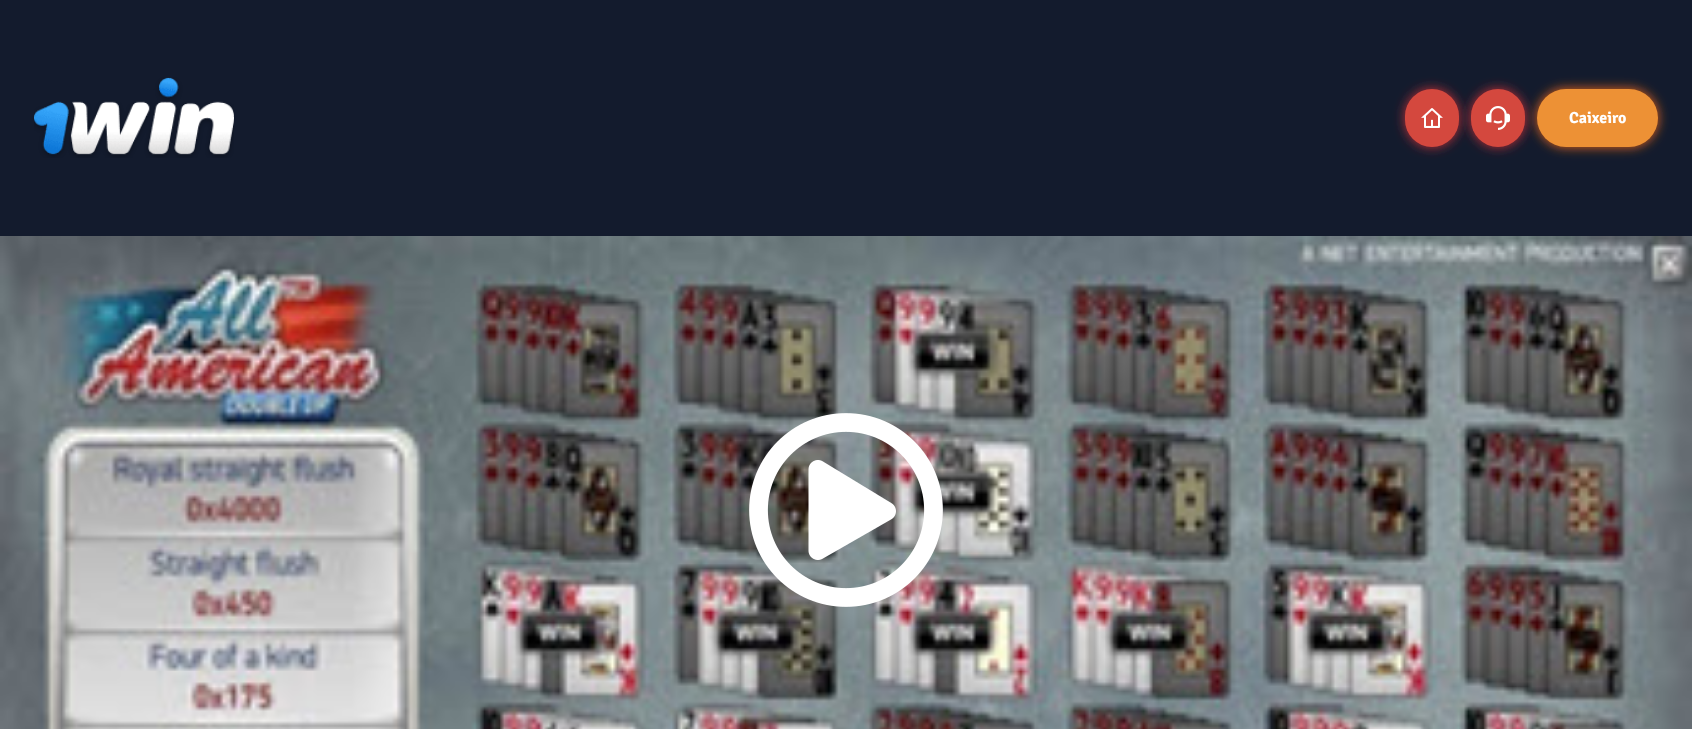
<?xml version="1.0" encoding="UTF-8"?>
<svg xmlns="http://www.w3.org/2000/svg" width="1692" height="729">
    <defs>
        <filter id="blur1" x="-50%" y="-200%" width="200%" height="500%"><feGaussianBlur stdDeviation="6"/></filter>
    </defs>
    <rect width="100%" height="100%" fill="#131B2D"/>
    <image x="34" y="77" width="200" height="81" href="img_01.png"/>
    <rect x="1405" y="89" width="54" height="58" rx="27" fill="#C23038" filter="url(#blur1)"/>
    <rect x="1405" y="89" width="54" height="58" rx="27" fill="#D4483E"/>
    <image x="1421" y="108" width="22" height="20" href="img_02.png"/>
    <rect x="1471" y="89" width="54" height="58" rx="27" fill="#C23038" filter="url(#blur1)"/>
    <rect x="1471" y="89" width="54" height="58" rx="27" fill="#D4483E"/>
    <image x="1486" y="106" width="24" height="24" href="img_03.png"/>
    <rect x="1537" y="89" width="121" height="58" rx="29" fill="#E8661D" filter="url(#blur1)"/>
    <rect x="1537" y="89" width="121" height="58" rx="29" fill="#ED9135"/>
    <text x="1569" y="123" font-family="Signika" font-size="16" font-weight="700" fill="#FFFFFF">Caixeiro</text>
    <image x="0" y="236" width="1692" height="493" href="img_04.png"/>
    <image x="749" y="413" width="194" height="194" href="img_05.png"/>
</svg>
